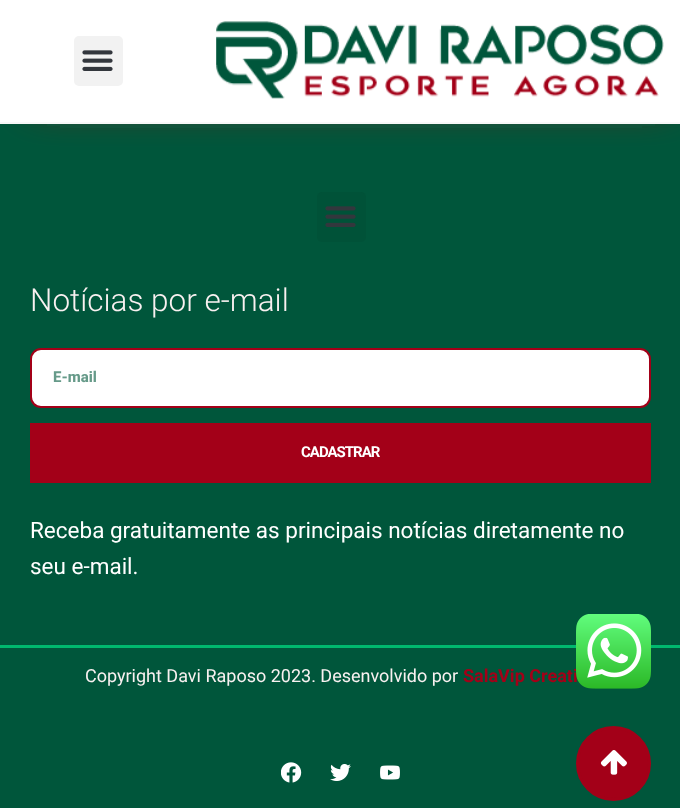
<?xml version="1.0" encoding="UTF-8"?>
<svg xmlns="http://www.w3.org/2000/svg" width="680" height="808">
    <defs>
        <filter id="blur1" x="-50%" y="-200%" width="200%" height="500%"><feGaussianBlur stdDeviation="20"/></filter>
    </defs>
    <rect width="100%" height="100%" fill="#00563B"/>
    <rect x="33" y="23" width="636" height="78" fill="#AF2C2C" filter="url(#blur1)"/>
    <rect x="0" y="0" width="680" height="122" fill="#FFFFFF"/>
    <rect x="0" y="122" width="680" height="2" fill="#F8F8F8"/>
    <rect x="74" y="36" width="49" height="50" rx="5" fill="#F2F2F2"/>
    <image x="82" y="50" width="31" height="21" href="img_01.png"/>
    <image x="216" y="21" width="448" height="78" href="img_02.png"/>
    <rect x="317" y="192" width="49" height="50" rx="5" fill="#005238"/>
    <image x="325" y="206" width="31" height="21" href="img_03.png"/>
    <text x="30" y="311" font-family="Roboto" font-size="31.5" font-weight="300" fill="#F9F1F1">Notícias por e-mail</text>
    <rect x="31" y="349" width="619" height="58" rx="10" fill="#FFFFFF" stroke="#A30018" stroke-width="2"/>
    <text x="53" y="382" font-family="Roboto" font-size="15" font-weight="800" fill="#669A89">E-mail</text>
    <rect x="30" y="423" width="621" height="60" fill="#A30018"/>
    <text x="301" y="457" font-family="Roboto" font-size="15" font-weight="700" letter-spacing="-1" fill="#FFFFFF">CADASTRAR</text>
    <text font-family="Roboto" font-size="22.5" fill="#FFFFFF">
        <tspan x="30" y="538">Receba gratuitamente as principais notícias diretamente no</tspan>
        <tspan x="30" y="574">seu e-mail.</tspan>
    </text>
    <rect x="0" y="645" width="680" height="3" fill="#00B86E"/>
    <text x="85" y="682" font-family="Roboto" font-size="18" fill="#F9F1F1">Copyright Davi Raposo 2023. Desenvolvido por</text>
    <text x="463" y="682" font-family="Roboto" font-size="18" font-weight="700" fill="#A30018">SalaVip Creati</text>
    <image x="281" y="762" width="21" height="21" href="img_04.png"/>
    <image x="330" y="764" width="21" height="17" href="img_05.png"/>
    <image x="380" y="765" width="20" height="15" href="img_06.png"/>
    <image x="576" y="614" width="75" height="75" href="img_07.png"/>
    <circle cx="613.5" cy="763.5" r="36" fill="#A30018" stroke="#A30018" stroke-width="3"/>
    <image x="600" y="750" width="27" height="25" href="img_08.png"/>
</svg>
